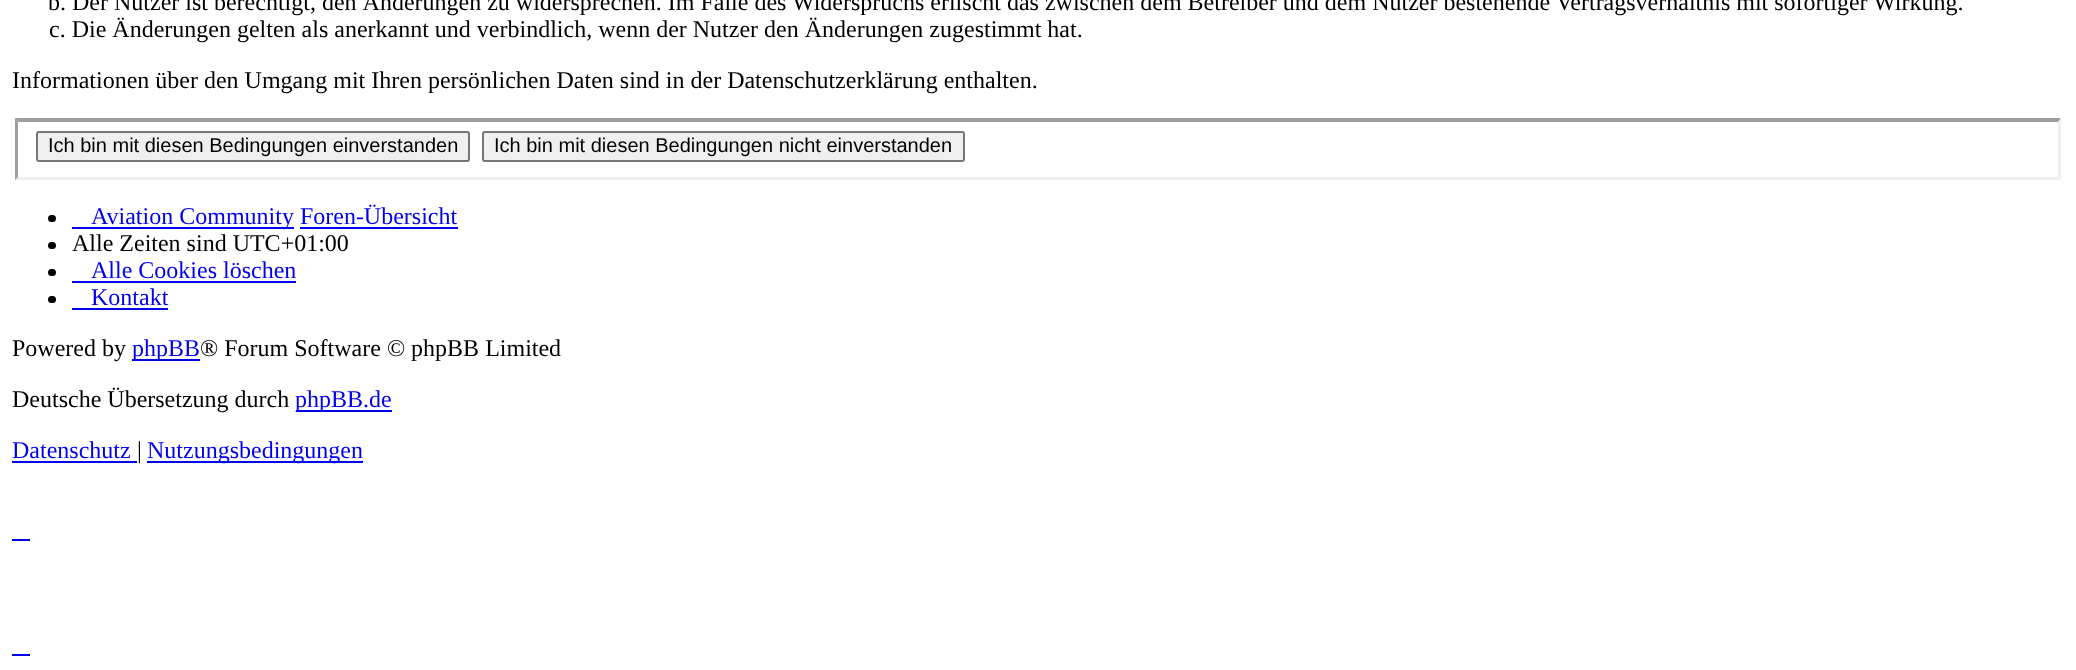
<?xml version="1.0" encoding="UTF-8"?>
<svg xmlns="http://www.w3.org/2000/svg" width="2076" height="670">
    <rect width="100%" height="100%" fill="#FFFFFF"/>
    <text x="48" y="10" font-family="Liberation Serif" font-size="24" fill="#000000">b. Der Nutzer ist berechtigt, den Änderungen zu widersprechen. Im Falle des Widerspruchs erlischt das zwischen dem Betreiber und dem Nutzer bestehende Vertragsverhältnis mit sofortiger Wirkung.</text>
    <text x="49" y="37" font-family="Liberation Serif" font-size="24" fill="#000000">c. Die Änderungen gelten als anerkannt und verbindlich, wenn der Nutzer den Änderungen zugestimmt hat.</text>
    <text x="12" y="88" font-family="Liberation Serif" font-size="24" fill="#000000">Informationen über den Umgang mit Ihren persönlichen Daten sind in der Datenschutzerklärung enthalten.</text>
    <path d="M 15 118 H 2061 L 2058 122 H 18 Z" fill="#9F9F9F"/>
    <path d="M 2061 118 V 180 L 2058 177 V 122 Z" fill="#EFEFEF"/>
    <path d="M 2061 180 H 15 L 18 177 H 2058 Z" fill="#EFEFEF"/>
    <path d="M 15 180 V 118 L 18 122 V 177 Z" fill="#9F9F9F"/>
    <rect x="37" y="132" width="432" height="29" rx="2" fill="#EFEFEF" stroke="#767676" stroke-width="2"/>
    <text x="48" y="152" font-family="Liberation Sans" font-size="20" fill="#000000">Ich bin mit diesen Bedingungen einverstanden</text>
    <rect x="483" y="132" width="481" height="29" rx="2" fill="#EFEFEF" stroke="#767676" stroke-width="2"/>
    <text x="494" y="152" font-family="Liberation Sans" font-size="20" fill="#000000">Ich bin mit diesen Bedingungen nicht einverstanden</text>
    <rect x="48" y="215" width="8" height="7" rx="3.5" fill="#000000"/>
    <rect x="72" y="227" width="222" height="2" fill="#0000EE"/>
    <text x="91" y="224" font-family="Liberation Serif" font-size="24" fill="#0000EE">Aviation Community Foren-Übersicht</text>
    <rect x="300" y="227" width="158" height="2" fill="#0000EE"/>
    <rect x="48" y="242" width="8" height="7" rx="3.5" fill="#000000"/>
    <text x="72" y="251" font-family="Liberation Serif" font-size="24" fill="#000000">Alle Zeiten sind UTC+01:00</text>
    <rect x="48" y="269" width="8" height="7" rx="3.5" fill="#000000"/>
    <text x="91" y="278" font-family="Liberation Serif" font-size="24" fill="#0000EE">Alle Cookies löschen</text>
    <rect x="72" y="281" width="224" height="2" fill="#0000EE"/>
    <rect x="48" y="296" width="8" height="7" rx="3.5" fill="#000000"/>
    <text x="91" y="305" font-family="Liberation Serif" font-size="24" fill="#0000EE">Kontakt</text>
    <rect x="72" y="308" width="96" height="2" fill="#0000EE"/>
    <text x="12" y="356" font-family="Liberation Serif" font-size="24" fill="#000000">Powered by</text>
    <rect x="132" y="359" width="68" height="2" fill="#0000EE"/>
    <text x="132" y="356" font-family="Liberation Serif" font-size="24" fill="#0000EE">phpBB</text>
    <text x="200" y="356" font-family="Liberation Serif" font-size="24" fill="#000000">® Forum Software © phpBB Limited</text>
    <text x="12" y="407" font-family="Liberation Serif" font-size="24" fill="#000000">Deutsche Übersetzung durch</text>
    <rect x="296" y="410" width="96" height="2" fill="#0000EE"/>
    <text x="295" y="407" font-family="Liberation Serif" font-size="24" fill="#0000EE">phpBB.de</text>
    <text x="12" y="458" font-family="Liberation Serif" font-size="24" fill="#0000EE">Datenschutz</text>
    <rect x="12" y="461" width="125" height="2" fill="#0000EE"/>
    <text x="137" y="458" font-family="Liberation Serif" font-size="24" fill="#000000">|</text>
    <rect x="147" y="461" width="216" height="2" fill="#0000EE"/>
    <text x="147" y="458" font-family="Liberation Serif" font-size="24" fill="#0000EE">Nutzungsbedingungen</text>
    <rect x="12" y="539" width="18" height="2" fill="#0000EE"/>
    <rect x="12" y="654" width="18" height="2" fill="#0000EE"/>
</svg>
